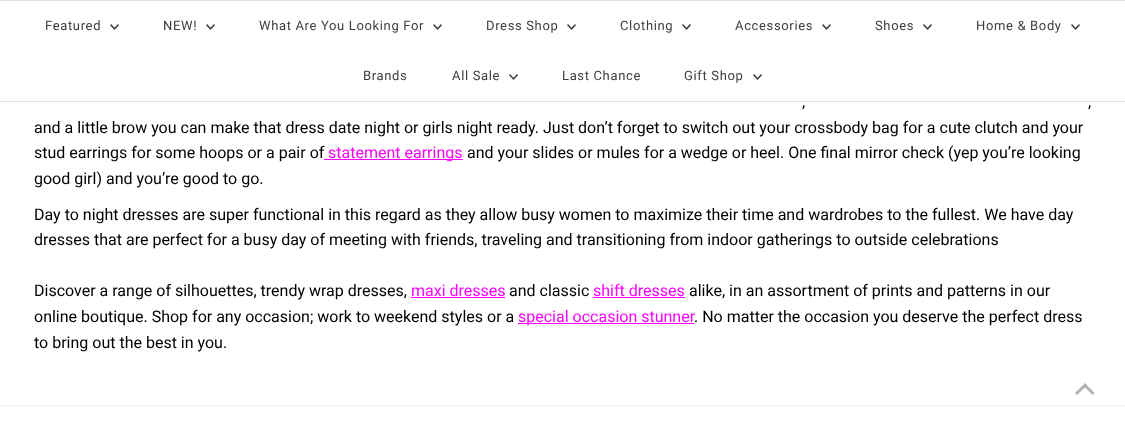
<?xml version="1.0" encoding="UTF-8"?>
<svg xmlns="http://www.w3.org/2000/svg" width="1125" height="444">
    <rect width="100%" height="100%" fill="#FFFFFF"/>
    <rect x="0" y="0" width="1125" height="1" fill="#DFDFDF"/>
    <rect x="0" y="101" width="1125" height="1" fill="#DFDFDF"/>
    <text x="45" y="30" font-family="Roboto" font-size="13" letter-spacing="0.65" fill="#3E3E3E">Featured</text>
    <image x="110" y="24" width="9" height="6" href="img_01.png"/>
    <text x="163" y="30" font-family="Roboto" font-size="13" letter-spacing="0.65" fill="#3E3E3E">NEW!</text>
    <image x="206" y="24" width="9" height="6" href="img_01.png"/>
    <text x="259" y="30" font-family="Roboto" font-size="13" letter-spacing="0.65" fill="#3E3E3E">What Are You Looking For</text>
    <image x="433" y="24" width="9" height="6" href="img_01.png"/>
    <text x="486" y="30" font-family="Roboto" font-size="13" letter-spacing="0.65" fill="#3E3E3E">Dress Shop</text>
    <image x="567" y="24" width="9" height="6" href="img_01.png"/>
    <text x="620" y="30" font-family="Roboto" font-size="13" letter-spacing="0.65" fill="#3E3E3E">Clothing</text>
    <image x="682" y="24" width="9" height="6" href="img_01.png"/>
    <text x="735" y="30" font-family="Roboto" font-size="13" letter-spacing="0.65" fill="#3E3E3E">Accessories</text>
    <image x="822" y="24" width="9" height="6" href="img_01.png"/>
    <text x="875" y="30" font-family="Roboto" font-size="13" letter-spacing="0.65" fill="#3E3E3E">Shoes</text>
    <image x="923" y="24" width="9" height="6" href="img_01.png"/>
    <text x="976" y="30" font-family="Roboto" font-size="13" letter-spacing="0.65" fill="#3E3E3E">Home &amp; Body</text>
    <image x="1071" y="24" width="9" height="6" href="img_01.png"/>
    <text x="363" y="80" font-family="Roboto" font-size="13" letter-spacing="0.65" fill="#3E3E3E">Brands</text>
    <text x="452" y="80" font-family="Roboto" font-size="13" letter-spacing="0.65" fill="#3E3E3E">All Sale</text>
    <image x="509" y="74" width="9" height="6" href="img_01.png"/>
    <text x="562" y="80" font-family="Roboto" font-size="13" letter-spacing="0.65" fill="#3E3E3E">Last Chance</text>
    <text x="684" y="80" font-family="Roboto" font-size="13" letter-spacing="0.65" fill="#3E3E3E">Gift Shop</text>
    <image x="753" y="74" width="9" height="6" href="img_01.png"/>
    <text x="802" y="107" font-family="Roboto" font-size="16" fill="#000000">,</text>
    <text x="1088" y="107" font-family="Roboto" font-size="16" fill="#000000">,</text>
    <text font-family="Roboto" font-size="16" fill="#000000">
        <tspan x="34" y="133">and a little brow you can make that dress date night or girls night ready. Just don’t forget to switch out your crossbody bag for a cute clutch and your</tspan>
        <tspan x="34" y="158">stud earrings for some hoops or a pair of</tspan>
    </text>
    <rect x="324" y="159" width="139" height="1" fill="#FF00FF"/>
    <text x="328" y="158" font-family="Roboto" font-size="16" fill="#FF00FF">statement earrings</text>
    <text x="467" y="158" font-family="Roboto" font-size="16" fill="#000000">and your slides or mules for a wedge or heel. One final mirror check (yep you’re looking</text>
    <text x="34" y="184" font-family="Roboto" font-size="16" fill="#000000">good girl) and you’re good to go.</text>
    <text font-family="Roboto" font-size="16" fill="#000000">
        <tspan x="34" y="220">Day to night dresses are super functional in this regard as they allow busy women to maximize their time and wardrobes to the fullest. We have day</tspan>
        <tspan x="34" y="245">dresses that are perfect for a busy day of meeting with friends, traveling and transitioning from indoor gatherings to outside celebrations</tspan>
    </text>
    <text x="34" y="296" font-family="Roboto" font-size="16" fill="#000000">Discover a range of silhouettes, trendy wrap dresses,</text>
    <text x="411" y="296" font-family="Roboto" font-size="16" fill="#FF00FF">maxi dresses</text>
    <rect x="411" y="297" width="94" height="1" fill="#FF00FF"/>
    <text x="509" y="296" font-family="Roboto" font-size="16" fill="#000000">and classic</text>
    <text x="593" y="296" font-family="Roboto" font-size="16" fill="#FF00FF">shift dresses</text>
    <rect x="593" y="297" width="92" height="1" fill="#FF00FF"/>
    <text x="689" y="296" font-family="Roboto" font-size="16" fill="#000000">alike, in an assortment of prints and patterns in our</text>
    <text x="34" y="322" font-family="Roboto" font-size="16" fill="#000000">online boutique. Shop for any occasion; work to weekend styles or a</text>
    <rect x="518" y="323" width="176" height="1" fill="#FF00FF"/>
    <text x="518" y="322" font-family="Roboto" font-size="16" fill="#FF00FF">special occasion stunner</text>
    <text x="694" y="322" font-family="Roboto" font-size="16" fill="#000000">. No matter the occasion you deserve the perfect dress</text>
    <text x="34" y="348" font-family="Roboto" font-size="16" fill="#000000">to bring out the best in you.</text>
    <path d="M 1085 383 L 1075 393 L 1077 395 L 1085 387.5 L 1092.5 395 L 1094.5 393 Z" fill="#B2B2B2"/>
    <rect x="0" y="405" width="1125" height="1" fill="#F0F0F0"/>
</svg>
